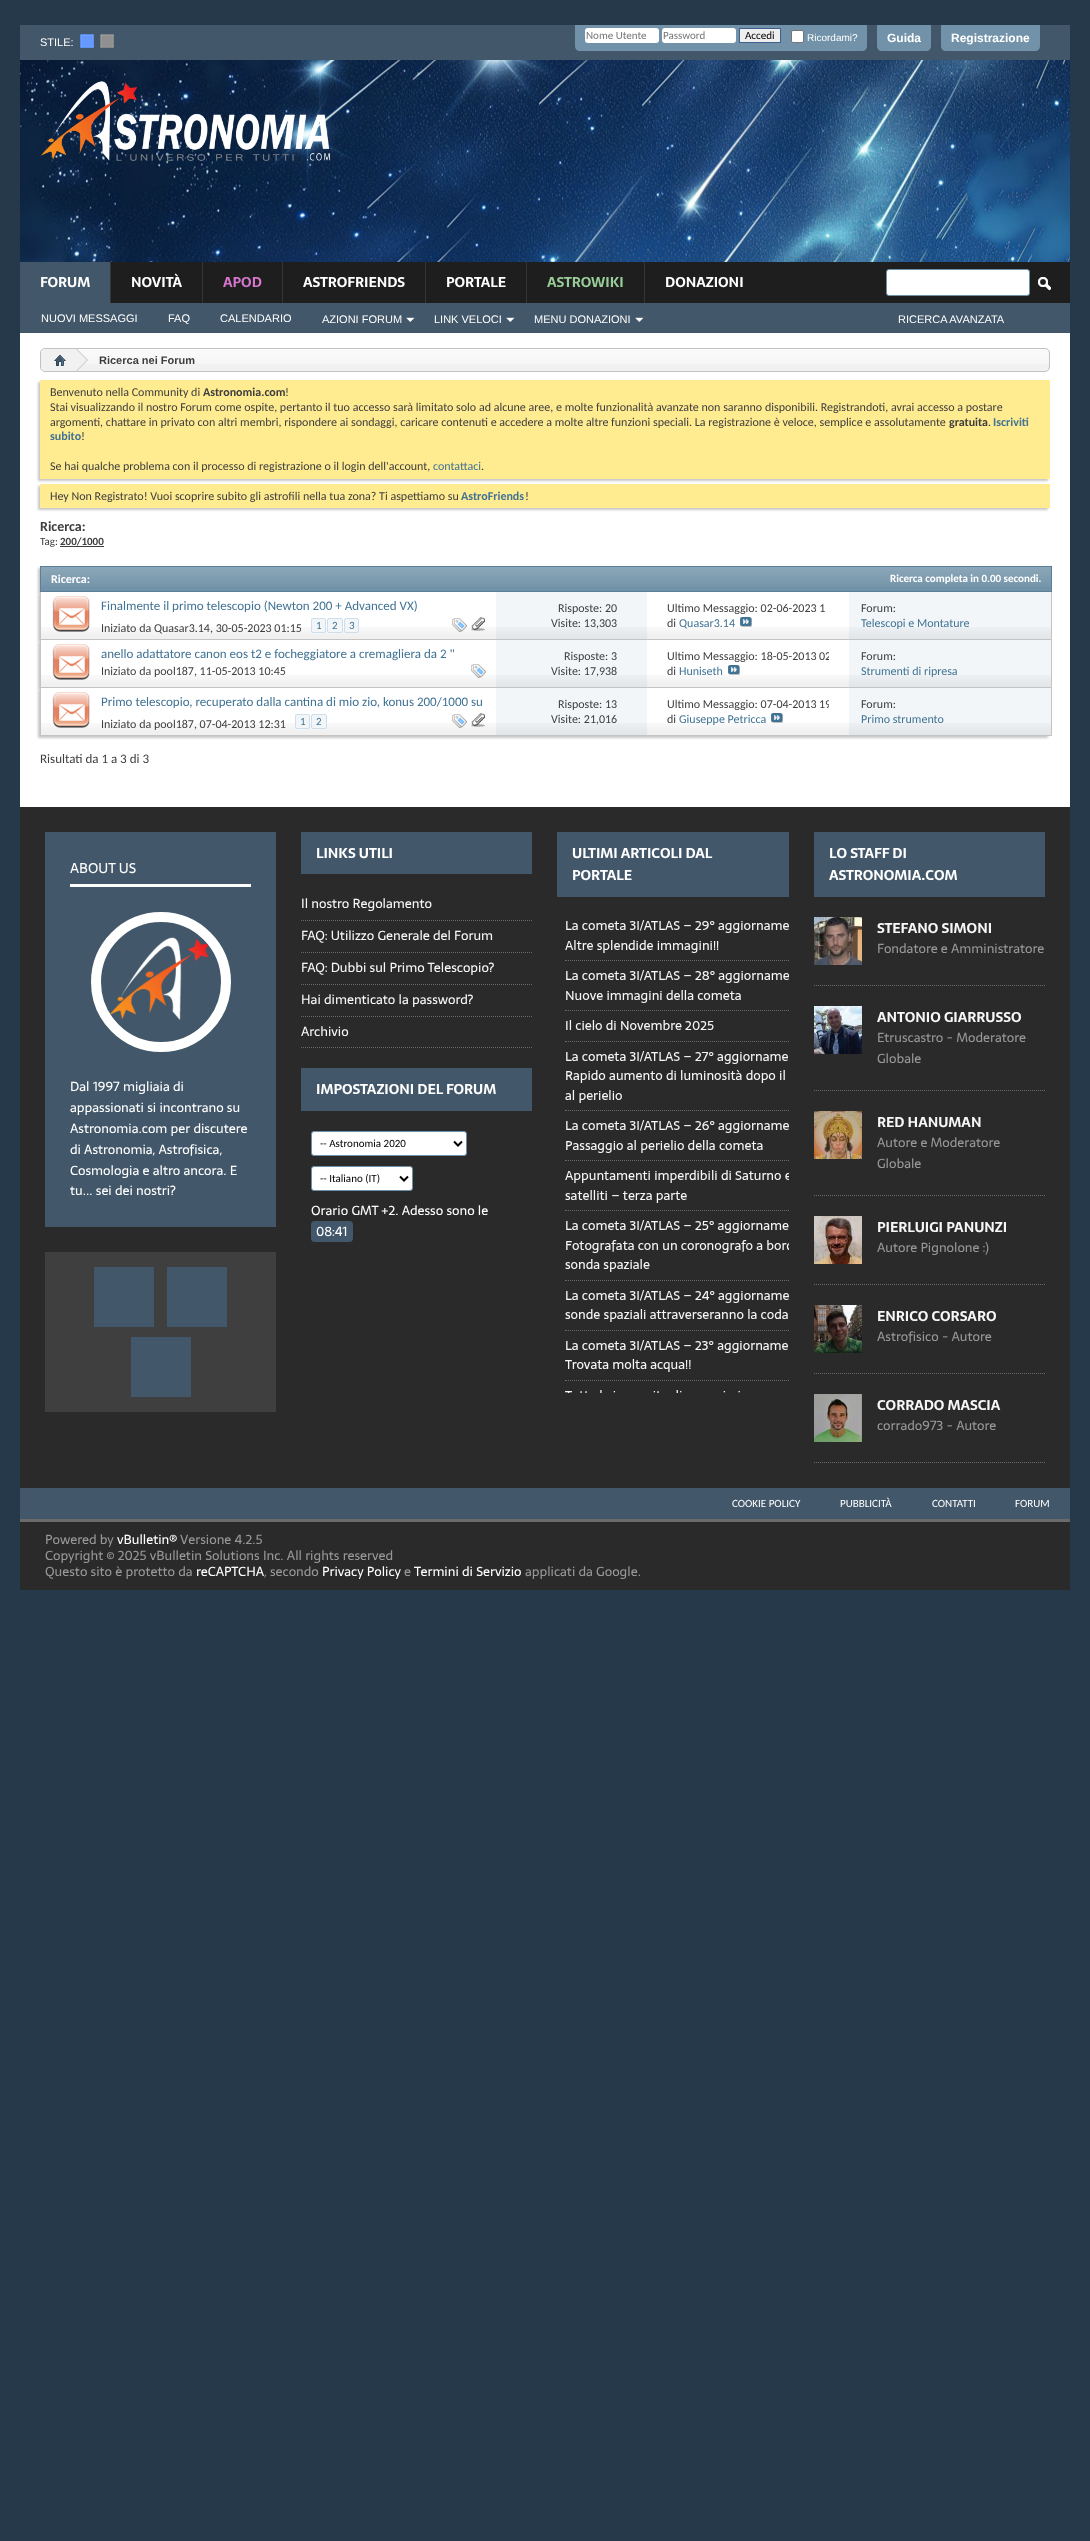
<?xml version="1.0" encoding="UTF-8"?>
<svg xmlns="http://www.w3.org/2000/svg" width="1090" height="2541">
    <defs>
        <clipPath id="clip1"><rect x="41" y="349" width="1008" height="22" rx="4"/></clipPath>
        <filter id="blur1" x="-50%" y="-200%" width="200%" height="500%"><feGaussianBlur stdDeviation="1"/></filter>
        <clipPath id="clip2"><rect x="667" y="649" width="162" height="15"/></clipPath>
        <clipPath id="clip3"><rect x="667" y="697" width="162" height="15"/></clipPath>
    </defs>
    <rect width="100%" height="100%" fill="#25394A"/>
    <rect x="20" y="25" width="1050" height="35" fill="#425769"/>
    <text x="40" y="46" font-family="Liberation Sans" font-size="11" fill="#FFFFFF">STILE:</text>
    <image x="80" y="34" width="14" height="14" href="img_01.png"/>
    <image x="100" y="34" width="14" height="14" href="img_02.png"/>
    <path d="M 575 25 H 867 V 46 C 867 49 865 51 862 51 H 580 C 577 51 575 49 575 46 Z" fill="#7192A8"/>
    <rect x="585" y="28" width="74" height="15" rx="3" fill="#FFFFFF"/>
    <text x="586" y="39" font-family="Carlito" font-size="11" fill="#777777">Nome Utente</text>
    <rect x="662" y="28" width="74" height="15" rx="3" fill="#FFFFFF"/>
    <text x="663" y="39" font-family="Carlito" font-size="11" fill="#777777">Password</text>
    <rect x="739.5" y="28.5" width="41" height="14" fill="#EFEFEF" stroke="#415D8D"/>
    <text x="745" y="39" font-family="Carlito" font-size="11" fill="#000000">Accedi</text>
    <rect x="791.5" y="30.5" width="12" height="12" rx="1.5" fill="#FFFFFF" stroke="#767676"/>
    <text x="807" y="41" font-family="Liberation Sans" font-size="10" fill="#FFFFFF">Ricordami?</text>
    <path d="M 877 25 H 931 V 46 C 931 49 929 51 926 51 H 882 C 879 51 877 49 877 46 Z" fill="#7192A8"/>
    <text x="887" y="42" font-family="Liberation Sans" font-size="12" font-weight="700" fill="#FFFFFF">Guida</text>
    <path d="M 941 25 H 1040 V 46 C 1040 49 1038 51 1035 51 H 946 C 943 51 941 49 941 46 Z" fill="#7192A8"/>
    <text x="951" y="42" font-family="Liberation Sans" font-size="12" font-weight="700" fill="#FFFFFF">Registrazione</text>
    <image x="20" y="60" width="1050" height="202" href="img_03.png"/>
    <image x="41" y="81" width="290" height="80" href="img_04.png"/>
    <rect x="111" y="262" width="959" height="41" fill="#1F1E1E"/>
    <rect x="20" y="262" width="90" height="41" fill="#425769"/>
    <text x="40" y="287" font-family="Sarala" font-size="14" font-weight="700" fill="#FFFFFF">FORUM</text>
    <rect x="110" y="262" width="1" height="41" fill="#353535"/>
    <text x="131" y="287" font-family="Sarala" font-size="14" font-weight="700" fill="#FFFFFF">NOVITÀ</text>
    <rect x="202" y="262" width="1" height="41" fill="#353535"/>
    <text x="223" y="287" font-family="Sarala" font-size="14" font-weight="700" fill="#D676CE">APOD</text>
    <rect x="282" y="262" width="1" height="41" fill="#353535"/>
    <text x="303" y="287" font-family="Sarala" font-size="14" font-weight="700" fill="#FFFFFF">ASTROFRIENDS</text>
    <rect x="425" y="262" width="1" height="41" fill="#353535"/>
    <text x="446" y="287" font-family="Sarala" font-size="14" font-weight="700" fill="#FFFFFF">PORTALE</text>
    <rect x="526" y="262" width="1" height="41" fill="#353535"/>
    <text x="547" y="287" font-family="Sarala" font-size="14" font-weight="700" fill="#98CC98">ASTROWIKI</text>
    <rect x="644" y="262" width="1" height="41" fill="#353535"/>
    <text x="665" y="287" font-family="Sarala" font-size="14" font-weight="700" fill="#FFFFFF">DONAZIONI</text>
    <rect x="20" y="303" width="1050" height="30" fill="#425769"/>
    <text x="41" y="322" font-family="Liberation Sans" font-size="11" fill="#FFFFFF">NUOVI MESSAGGI</text>
    <text x="168" y="322" font-family="Liberation Sans" font-size="11" fill="#FFFFFF">FAQ</text>
    <text x="220" y="322" font-family="Liberation Sans" font-size="11" fill="#FFFFFF">CALENDARIO</text>
    <image x="406" y="317" width="9" height="5" href="img_05.png"/>
    <text x="322" y="323" font-family="Liberation Sans" font-size="11" fill="#FFFFFF">AZIONI FORUM</text>
    <image x="506" y="317" width="9" height="5" href="img_05.png"/>
    <text x="434" y="323" font-family="Liberation Sans" font-size="11" fill="#FFFFFF">LINK VELOCI</text>
    <image x="635" y="317" width="9" height="5" href="img_05.png"/>
    <text x="534" y="323" font-family="Liberation Sans" font-size="11" fill="#FFFFFF">MENU DONAZIONI</text>
    <rect x="886.5" y="269.5" width="143" height="26" rx="2.5" fill="#FFFFFF" stroke="#6B91AB"/>
    <image x="1038" y="277" width="13" height="14" href="img_06.png"/>
    <text x="898" y="323" font-family="Liberation Sans" font-size="11" fill="#FFFFFF">RICERCA AVANZATA</text>
    <rect x="20" y="333" width="1050" height="474" fill="#FFFFFF"/>
    <rect x="40" y="348" width="1010" height="24" rx="5" fill="#F1F1F1"/>
    <image x="40" y="349" width="1010" height="15" href="img_07.png"/>
    <rect x="40.5" y="348.5" width="1009" height="23" rx="4.5" fill="none" stroke="#C1C1C1"/>
    <g clip-path="url(#clip1)">
        <path d="M 46 349 H 76 V 372 H 46 C 43 372 41 370 41 367 V 354 C 41 351 43 349 46 349 Z" fill="#F1F1F1"/>
    </g>
    <image x="54" y="355" width="12" height="11" href="img_08.png"/>
    <path d="M 77 349 L 88 360 L 77 371 H 76 V 349 Z" fill="#C1C1C1"/>
    <path d="M 76 349 L 87 360 L 76 371 H 75 V 349 Z" fill="#F1F1F1"/>
    <text x="99" y="364" font-family="Liberation Sans" font-size="11" font-weight="700" fill="#3E3E3E">Ricerca nei Forum</text>
    <rect x="38" y="382" width="1010" height="99" fill="#C8C8C8" filter="url(#blur1)"/>
    <rect x="40" y="380" width="1010" height="99" fill="#FFEB90"/>
    <text x="50" y="396" font-family="Carlito" font-size="12" fill="#3E3E3E">Benvenuto nella Community di</text>
    <text x="203" y="396" font-family="Carlito" font-size="12" font-weight="700" fill="#3E3E3E">Astronomia.com</text>
    <text x="285" y="396" font-family="Carlito" font-size="12" fill="#3E3E3E">!</text>
    <text font-family="Carlito" font-size="12" fill="#3E3E3E">
        <tspan x="50" y="411">Stai visualizzando il nostro Forum come ospite, pertanto il tuo accesso sarà limitato solo ad alcune aree, e molte funzionalità avanzate non saranno disponibili. Registrandoti, avrai accesso a postare</tspan>
        <tspan x="50" y="426">argomenti, chattare in privato con altri membri, rispondere ai sondaggi, caricare contenuti e accedere a molte altre funzioni speciali. La registrazione è veloce, semplice e assolutamente</tspan>
    </text>
    <text x="949" y="426" font-family="Carlito" font-size="12" font-weight="700" fill="#3E3E3E">gratuita</text>
    <text x="988" y="426" font-family="Carlito" font-size="12" fill="#3E3E3E">.</text>
    <text x="993" y="426" font-family="Carlito" font-size="12" font-weight="700" fill="#417394">Iscriviti</text>
    <text x="50" y="440" font-family="Carlito" font-size="12" font-weight="700" fill="#417394">subito</text>
    <text x="81" y="440" font-family="Carlito" font-size="12" fill="#3E3E3E">!</text>
    <text x="50" y="470" font-family="Carlito" font-size="12" fill="#3E3E3E">Se hai qualche problema con il processo di registrazione o il login dell'account,</text>
    <text x="433" y="470" font-family="Carlito" font-size="12" fill="#417394">contattaci</text>
    <text x="481" y="470" font-family="Carlito" font-size="12" fill="#3E3E3E">.</text>
    <rect x="38" y="486" width="1010" height="24" fill="#C8C8C8" filter="url(#blur1)"/>
    <rect x="40" y="484" width="1010" height="24" fill="#FFEB90"/>
    <text x="50" y="500" font-family="Carlito" font-size="12" fill="#3E3E3E">Hey Non Registrato! Vuoi scoprire subito gli astrofili nella tua zona? Ti aspettiamo su</text>
    <text x="461" y="500" font-family="Carlito" font-size="12" font-weight="700" fill="#417394">AstroFriends</text>
    <text x="525" y="500" font-family="Carlito" font-size="12" fill="#3E3E3E">!</text>
    <text x="40" y="531" font-family="Carlito" font-size="14" font-weight="700" fill="#3E3E3E">Ricerca:</text>
    <text x="40" y="545" font-family="Carlito" font-size="11" fill="#3E3E3E">Tag:</text>
    <text x="60" y="545" font-family="Carlito" font-size="11" font-weight="700" fill="#3E3E3E">200/1000</text>
    <rect x="60" y="546" width="44" height="1" fill="#3E3E3E"/>
    <rect x="38" y="568" width="1012" height="26" fill="#C8C8C8" filter="url(#blur1)"/>
    <rect x="41" y="567" width="1010" height="24" fill="#7192A8"/>
    <image x="41" y="567" width="1010" height="20" href="img_09.png"/>
    <rect x="40.5" y="566.5" width="1011" height="25" fill="none" stroke="#5A7F97"/>
    <text x="51" y="583" font-family="Carlito" font-size="12" font-weight="700" fill="#FFFFFF">Ricerca:</text>
    <text x="890" y="582" font-family="Carlito" font-size="11" font-weight="700" fill="#FFFFFF">Ricerca completa in 0.00 secondi.</text>
    <rect x="38" y="594" width="1010" height="48" fill="#C8C8C8" filter="url(#blur1)"/>
    <rect x="41" y="592" width="808" height="47" fill="#FFFFFF"/>
    <image x="41" y="627" width="808" height="12" href="img_10.png"/>
    <rect x="1051" y="592" width="1" height="48" fill="#C4C4C4"/>
    <rect x="40" y="639" width="1012" height="1" fill="#C4C4C4"/>
    <rect x="40" y="592" width="1" height="48" fill="#C4C4C4"/>
    <image x="52" y="596" width="38" height="36" href="img_11.png"/>
    <text x="101" y="610" font-family="Carlito" font-size="13" fill="#417394">Finalmente il primo telescopio (Newton 200 + Advanced VX)</text>
    <text x="101" y="632" font-family="Carlito" font-size="12" fill="#3E3E3E">Iniziato da Quasar3.14, 30-05-2023 01:15</text>
    <rect x="311.5" y="618.5" width="14" height="14" rx="1.5" fill="#F2F6F8" stroke="#CEDFEB"/>
    <text x="316" y="629" font-family="Carlito" font-size="11" fill="#417394">1</text>
    <rect x="327.5" y="618.5" width="15" height="14" rx="1.5" fill="#F2F6F8" stroke="#CEDFEB"/>
    <text x="332" y="629" font-family="Carlito" font-size="11" fill="#417394">2</text>
    <rect x="344.5" y="618.5" width="14" height="14" rx="1.5" fill="#F2F6F8" stroke="#CEDFEB"/>
    <text x="349" y="629" font-family="Carlito" font-size="11" fill="#417394">3</text>
    <image x="452" y="618" width="15" height="14" href="img_12.png"/>
    <image x="471" y="617" width="14" height="14" href="img_13.png"/>
    <rect x="496" y="592" width="151" height="47" fill="#F2F6F8"/>
    <image x="496" y="627" width="151" height="12" href="img_14.png"/>
    <text x="558" y="612" font-family="Carlito" font-size="12" fill="#3E3E3E">Risposte: 20</text>
    <text x="551" y="627" font-family="Carlito" font-size="12" fill="#3E3E3E">Visite: 13,303</text>
    <text font-family="Carlito" font-size="12" fill="#3E3E3E">
        <tspan x="667" y="612">Ultimo Messaggio: 02-06-2023 1</tspan>
        <tspan x="667" y="627">di</tspan>
    </text>
    <text x="679" y="627" font-family="Carlito" font-size="12" fill="#417394">Quasar3.14</text>
    <image x="740" y="617" width="12" height="10" href="img_15.png"/>
    <rect x="849" y="592" width="202" height="47" fill="#F2F6F8"/>
    <image x="849" y="627" width="202" height="12" href="img_16.png"/>
    <text x="861" y="612" font-family="Carlito" font-size="12" fill="#3E3E3E">Forum:</text>
    <text x="861" y="627" font-family="Carlito" font-size="12" fill="#417394">Telescopi e Montature</text>
    <rect x="38" y="642" width="1010" height="48" fill="#C8C8C8" filter="url(#blur1)"/>
    <rect x="41" y="640" width="808" height="47" fill="#FFFFFF"/>
    <image x="41" y="675" width="808" height="12" href="img_10.png"/>
    <rect x="1051" y="640" width="1" height="48" fill="#C4C4C4"/>
    <rect x="40" y="687" width="1012" height="1" fill="#C4C4C4"/>
    <rect x="40" y="640" width="1" height="48" fill="#C4C4C4"/>
    <image x="52" y="644" width="38" height="36" href="img_11.png"/>
    <text x="101" y="658" font-family="Carlito" font-size="13" fill="#417394">anello adattatore canon eos t2 e focheggiatore a cremagliera da 2 "</text>
    <text x="101" y="675" font-family="Carlito" font-size="12" fill="#3E3E3E">Iniziato da pool187, 11-05-2013 10:45</text>
    <image x="471" y="664" width="15" height="14" href="img_17.png"/>
    <rect x="496" y="640" width="151" height="47" fill="#F2F6F8"/>
    <image x="496" y="675" width="151" height="12" href="img_14.png"/>
    <text x="564" y="660" font-family="Carlito" font-size="12" fill="#3E3E3E">Risposte: 3</text>
    <text x="551" y="675" font-family="Carlito" font-size="12" fill="#3E3E3E">Visite: 17,938</text>
    <text x="667" y="660" font-family="Carlito" font-size="12" fill="#3E3E3E">Ultimo Messaggio: 18-05-2013</text>
    <g clip-path="url(#clip2)">
        <text x="819" y="660" font-family="Carlito" font-size="12" fill="#3E3E3E">02</text>
    </g>
    <text x="667" y="675" font-family="Carlito" font-size="12" fill="#3E3E3E">di</text>
    <text x="679" y="675" font-family="Carlito" font-size="12" fill="#417394">Huniseth</text>
    <image x="728" y="665" width="12" height="10" href="img_15.png"/>
    <rect x="849" y="640" width="202" height="47" fill="#F2F6F8"/>
    <image x="849" y="675" width="202" height="12" href="img_16.png"/>
    <text x="861" y="660" font-family="Carlito" font-size="12" fill="#3E3E3E">Forum:</text>
    <text x="861" y="675" font-family="Carlito" font-size="12" fill="#417394">Strumenti di ripresa</text>
    <rect x="38" y="690" width="1010" height="48" fill="#C8C8C8" filter="url(#blur1)"/>
    <rect x="41" y="688" width="808" height="47" fill="#FFFFFF"/>
    <image x="41" y="723" width="808" height="12" href="img_10.png"/>
    <rect x="1051" y="688" width="1" height="48" fill="#C4C4C4"/>
    <rect x="40" y="735" width="1012" height="1" fill="#C4C4C4"/>
    <rect x="40" y="688" width="1" height="48" fill="#C4C4C4"/>
    <image x="52" y="692" width="38" height="36" href="img_11.png"/>
    <text x="101" y="706" font-family="Carlito" font-size="13" fill="#417394">Primo telescopio, recuperato dalla cantina di mio zio, konus 200/1000 su</text>
    <text x="101" y="728" font-family="Carlito" font-size="12" fill="#3E3E3E">Iniziato da pool187, 07-04-2013 12:31</text>
    <rect x="295.5" y="714.5" width="14" height="14" rx="1.5" fill="#F2F6F8" stroke="#CEDFEB"/>
    <text x="300" y="725" font-family="Carlito" font-size="11" fill="#417394">1</text>
    <rect x="311.5" y="714.5" width="15" height="14" rx="1.5" fill="#F2F6F8" stroke="#CEDFEB"/>
    <text x="316" y="725" font-family="Carlito" font-size="11" fill="#417394">2</text>
    <image x="452" y="714" width="15" height="14" href="img_12.png"/>
    <image x="471" y="713" width="14" height="14" href="img_13.png"/>
    <rect x="496" y="688" width="151" height="47" fill="#F2F6F8"/>
    <image x="496" y="723" width="151" height="12" href="img_14.png"/>
    <text x="558" y="708" font-family="Carlito" font-size="12" fill="#3E3E3E">Risposte: 13</text>
    <text x="551" y="723" font-family="Carlito" font-size="12" fill="#3E3E3E">Visite: 21,016</text>
    <text x="667" y="708" font-family="Carlito" font-size="12" fill="#3E3E3E">Ultimo Messaggio: 07-04-2013</text>
    <g clip-path="url(#clip3)">
        <text x="819" y="708" font-family="Carlito" font-size="12" fill="#3E3E3E">19</text>
    </g>
    <text x="667" y="723" font-family="Carlito" font-size="12" fill="#3E3E3E">di</text>
    <text x="679" y="723" font-family="Carlito" font-size="12" fill="#417394">Giuseppe Petricca</text>
    <image x="771" y="713" width="12" height="10" href="img_15.png"/>
    <rect x="849" y="688" width="202" height="47" fill="#F2F6F8"/>
    <image x="849" y="723" width="202" height="12" href="img_16.png"/>
    <text x="861" y="708" font-family="Carlito" font-size="12" fill="#3E3E3E">Forum:</text>
    <text x="861" y="723" font-family="Carlito" font-size="12" fill="#417394">Primo strumento</text>
    <text x="40" y="763" font-family="Carlito" font-size="13" fill="#3E3E3E">Risultati da 1 a 3 di 3</text>
    <rect x="20" y="807" width="1050" height="681" fill="#2A2A2A"/>
    <rect x="45" y="832" width="231" height="395" fill="#425769"/>
    <rect x="70" y="884" width="181" height="3" fill="#FFFFFF"/>
    <text x="70" y="873" font-family="Sarala" font-size="14" fill="#FFFFFF">ABOUT US</text>
    <circle cx="161" cy="982" r="65" fill="none" stroke="#FFFFFF" stroke-width="10"/>
    <image x="110" y="937" width="99" height="83" href="img_18.png"/>
    <text font-family="Sarala" font-size="13" fill="#FFFFFF">
        <tspan x="70" y="1091">Dal 1997 migliaia di</tspan>
        <tspan x="70" y="1112">appassionati si incontrano su</tspan>
        <tspan x="70" y="1133">Astronomia.com per discutere</tspan>
        <tspan x="70" y="1154">di Astronomia, Astrofisica,</tspan>
        <tspan x="70" y="1175">Cosmologia e altro ancora. E</tspan>
        <tspan x="70" y="1195">tu... sei dei nostri?</tspan>
    </text>
    <rect x="45" y="1252" width="231" height="160" fill="#3F3F3F"/>
    <rect x="94" y="1267" width="60" height="60" fill="#425769"/>
    <rect x="167" y="1267" width="60" height="60" fill="#425769"/>
    <rect x="131" y="1337" width="60" height="60" fill="#425769"/>
    <rect x="301" y="832" width="231" height="42" fill="#425769"/>
    <text x="316" y="858" font-family="Sarala" font-size="14" font-weight="700" fill="#FFFFFF">LINKS UTILI</text>
    <path d="M 301 920.5 H 532" fill="none" stroke="#6A6A6A" stroke-dasharray="1 1"/>
    <text x="301" y="908" font-family="Sarala" font-size="13" fill="#F7F7F7">Il nostro Regolamento</text>
    <path d="M 301 952.5 H 532" fill="none" stroke="#6A6A6A" stroke-dasharray="1 1"/>
    <text x="301" y="940" font-family="Sarala" font-size="13" fill="#F7F7F7">FAQ: Utilizzo Generale del Forum</text>
    <path d="M 301 984.5 H 532" fill="none" stroke="#6A6A6A" stroke-dasharray="1 1"/>
    <text x="301" y="972" font-family="Sarala" font-size="13" fill="#F7F7F7">FAQ: Dubbi sul Primo Telescopio?</text>
    <path d="M 301 1016.5 H 532" fill="none" stroke="#6A6A6A" stroke-dasharray="1 1"/>
    <text x="301" y="1004" font-family="Sarala" font-size="13" fill="#F7F7F7">Hai dimenticato la password?</text>
    <path d="M 301 1047.5 H 532" fill="none" stroke="#6A6A6A" stroke-dasharray="1 1"/>
    <text x="301" y="1036" font-family="Sarala" font-size="13" fill="#F7F7F7">Archivio</text>
    <rect x="301" y="1068" width="231" height="43" fill="#425769"/>
    <text x="316" y="1094" font-family="Sarala" font-size="14" font-weight="700" fill="#FFFFFF">IMPOSTAZIONI DEL FORUM</text>
    <rect x="311.5" y="1131.5" width="155" height="24" rx="2.5" fill="#FFFFFF" stroke="#6B91AB"/>
    <path d="M 454 1141.5 L 458 1145.5 L 462 1141.5" fill="none" stroke="#000000" stroke-width="2"/>
    <text x="320" y="1147" font-family="Carlito" font-size="11" fill="#000000">-- Astronomia 2020</text>
    <rect x="311.5" y="1166.5" width="101" height="24" rx="2.5" fill="#FFFFFF" stroke="#6B91AB"/>
    <path d="M 400 1176.5 L 404 1180.5 L 408 1176.5" fill="none" stroke="#000000" stroke-width="2"/>
    <text x="320" y="1182" font-family="Carlito" font-size="11" fill="#000000">-- Italiano (IT)</text>
    <text x="311" y="1215" font-family="Sarala" font-size="13" fill="#FFFFFF">Orario GMT +2. Adesso sono le</text>
    <rect x="311" y="1221" width="42" height="21" rx="4" fill="#425769"/>
    <text x="316" y="1236" font-family="Sarala" font-size="13" fill="#FFFFFF">08:41</text>
    <rect x="557" y="832" width="232" height="65" fill="#425769"/>
    <text font-family="Sarala" font-size="14" font-weight="700" fill="#FFFFFF">
        <tspan x="572" y="858">ULTIMI ARTICOLI DAL</tspan>
        <tspan x="572" y="880">PORTALE</tspan>
    </text>
    <image x="565" y="920" width="224" height="473" href="img_19.png"/>
    <rect x="814" y="832" width="231" height="65" fill="#425769"/>
    <text font-family="Sarala" font-size="14" font-weight="700" fill="#FFFFFF">
        <tspan x="829" y="858">LO STAFF DI</tspan>
        <tspan x="829" y="880">ASTRONOMIA.COM</tspan>
    </text>
    <path d="M 814 985.5 H 1045" fill="none" stroke="#6A6A6A" stroke-dasharray="1 1"/>
    <image x="814" y="917" width="48" height="48" href="img_20.png"/>
    <text x="877" y="933" font-family="Sarala" font-size="14" font-weight="700" fill="#F7F7F7">STEFANO SIMONI</text>
    <text x="877" y="953" font-family="Sarala" font-size="13" fill="#979797">Fondatore e Amministratore</text>
    <path d="M 814 1090.5 H 1045" fill="none" stroke="#6A6A6A" stroke-dasharray="1 1"/>
    <image x="814" y="1006" width="48" height="48" href="img_21.png"/>
    <text x="877" y="1022" font-family="Sarala" font-size="14" font-weight="700" fill="#F7F7F7">ANTONIO GIARRUSSO</text>
    <text font-family="Sarala" font-size="13" fill="#979797">
        <tspan x="877" y="1042">Etruscastro - Moderatore</tspan>
        <tspan x="877" y="1063">Globale</tspan>
    </text>
    <path d="M 814 1195.5 H 1045" fill="none" stroke="#6A6A6A" stroke-dasharray="1 1"/>
    <image x="814" y="1111" width="48" height="48" href="img_22.png"/>
    <text x="877" y="1127" font-family="Sarala" font-size="14" font-weight="700" fill="#F7F7F7">RED HANUMAN</text>
    <text font-family="Sarala" font-size="13" fill="#979797">
        <tspan x="877" y="1147">Autore e Moderatore</tspan>
        <tspan x="877" y="1168">Globale</tspan>
    </text>
    <path d="M 814 1284.5 H 1045" fill="none" stroke="#6A6A6A" stroke-dasharray="1 1"/>
    <image x="814" y="1216" width="48" height="48" href="img_23.png"/>
    <text x="877" y="1232" font-family="Sarala" font-size="14" font-weight="700" fill="#F7F7F7">PIERLUIGI PANUNZI</text>
    <text x="877" y="1252" font-family="Sarala" font-size="13" fill="#979797">Autore Pignolone :)</text>
    <path d="M 814 1373.5 H 1045" fill="none" stroke="#6A6A6A" stroke-dasharray="1 1"/>
    <image x="814" y="1305" width="48" height="48" href="img_24.png"/>
    <text x="877" y="1321" font-family="Sarala" font-size="14" font-weight="700" fill="#F7F7F7">ENRICO CORSARO</text>
    <text x="877" y="1341" font-family="Sarala" font-size="13" fill="#979797">Astrofisico - Autore</text>
    <path d="M 814 1462.5 H 1045" fill="none" stroke="#6A6A6A" stroke-dasharray="1 1"/>
    <image x="814" y="1394" width="48" height="48" href="img_25.png"/>
    <text x="877" y="1410" font-family="Sarala" font-size="14" font-weight="700" fill="#F7F7F7">CORRADO MASCIA</text>
    <text x="877" y="1430" font-family="Sarala" font-size="13" fill="#979797">corrado973 - Autore</text>
    <rect x="20" y="1488" width="1050" height="31" fill="#425769"/>
    <text x="732" y="1507" font-family="Carlito" font-size="11" fill="#FFFFFF">COOKIE POLICY</text>
    <text x="840" y="1507" font-family="Carlito" font-size="11" fill="#FFFFFF">PUBBLICITÀ</text>
    <text x="932" y="1507" font-family="Carlito" font-size="11" fill="#FFFFFF">CONTATTI</text>
    <text x="1015" y="1507" font-family="Carlito" font-size="11" fill="#FFFFFF">FORUM</text>
    <rect x="20" y="1522" width="1050" height="68" fill="#2A2A2A"/>
    <rect x="20" y="1519" width="1050" height="3" fill="#6A6A6A"/>
    <text x="45" y="1544" font-family="Sarala" font-size="13" fill="#979797">Powered by</text>
    <text x="117" y="1544" font-family="Sarala" font-size="13" fill="#FFFFFF">vBulletin®</text>
    <text x="180" y="1544" font-family="Sarala" font-size="13" fill="#979797">Versione 4.2.5</text>
    <text font-family="Sarala" font-size="13" fill="#979797">
        <tspan x="45" y="1560">Copyright © 2025 vBulletin Solutions Inc. All rights reserved</tspan>
        <tspan x="45" y="1576">Questo sito è protetto da</tspan>
    </text>
    <text x="196" y="1576" font-family="Sarala" font-size="13" fill="#FFFFFF">reCAPTCHA</text>
    <text x="264" y="1576" font-family="Sarala" font-size="13" fill="#979797">, secondo</text>
    <text x="322" y="1576" font-family="Sarala" font-size="13" fill="#FFFFFF">Privacy Policy</text>
    <text x="404" y="1576" font-family="Sarala" font-size="13" fill="#979797">e</text>
    <text x="414" y="1576" font-family="Sarala" font-size="13" fill="#FFFFFF">Termini di Servizio</text>
    <text x="525" y="1576" font-family="Sarala" font-size="13" fill="#979797">applicati da Google.</text>
</svg>
